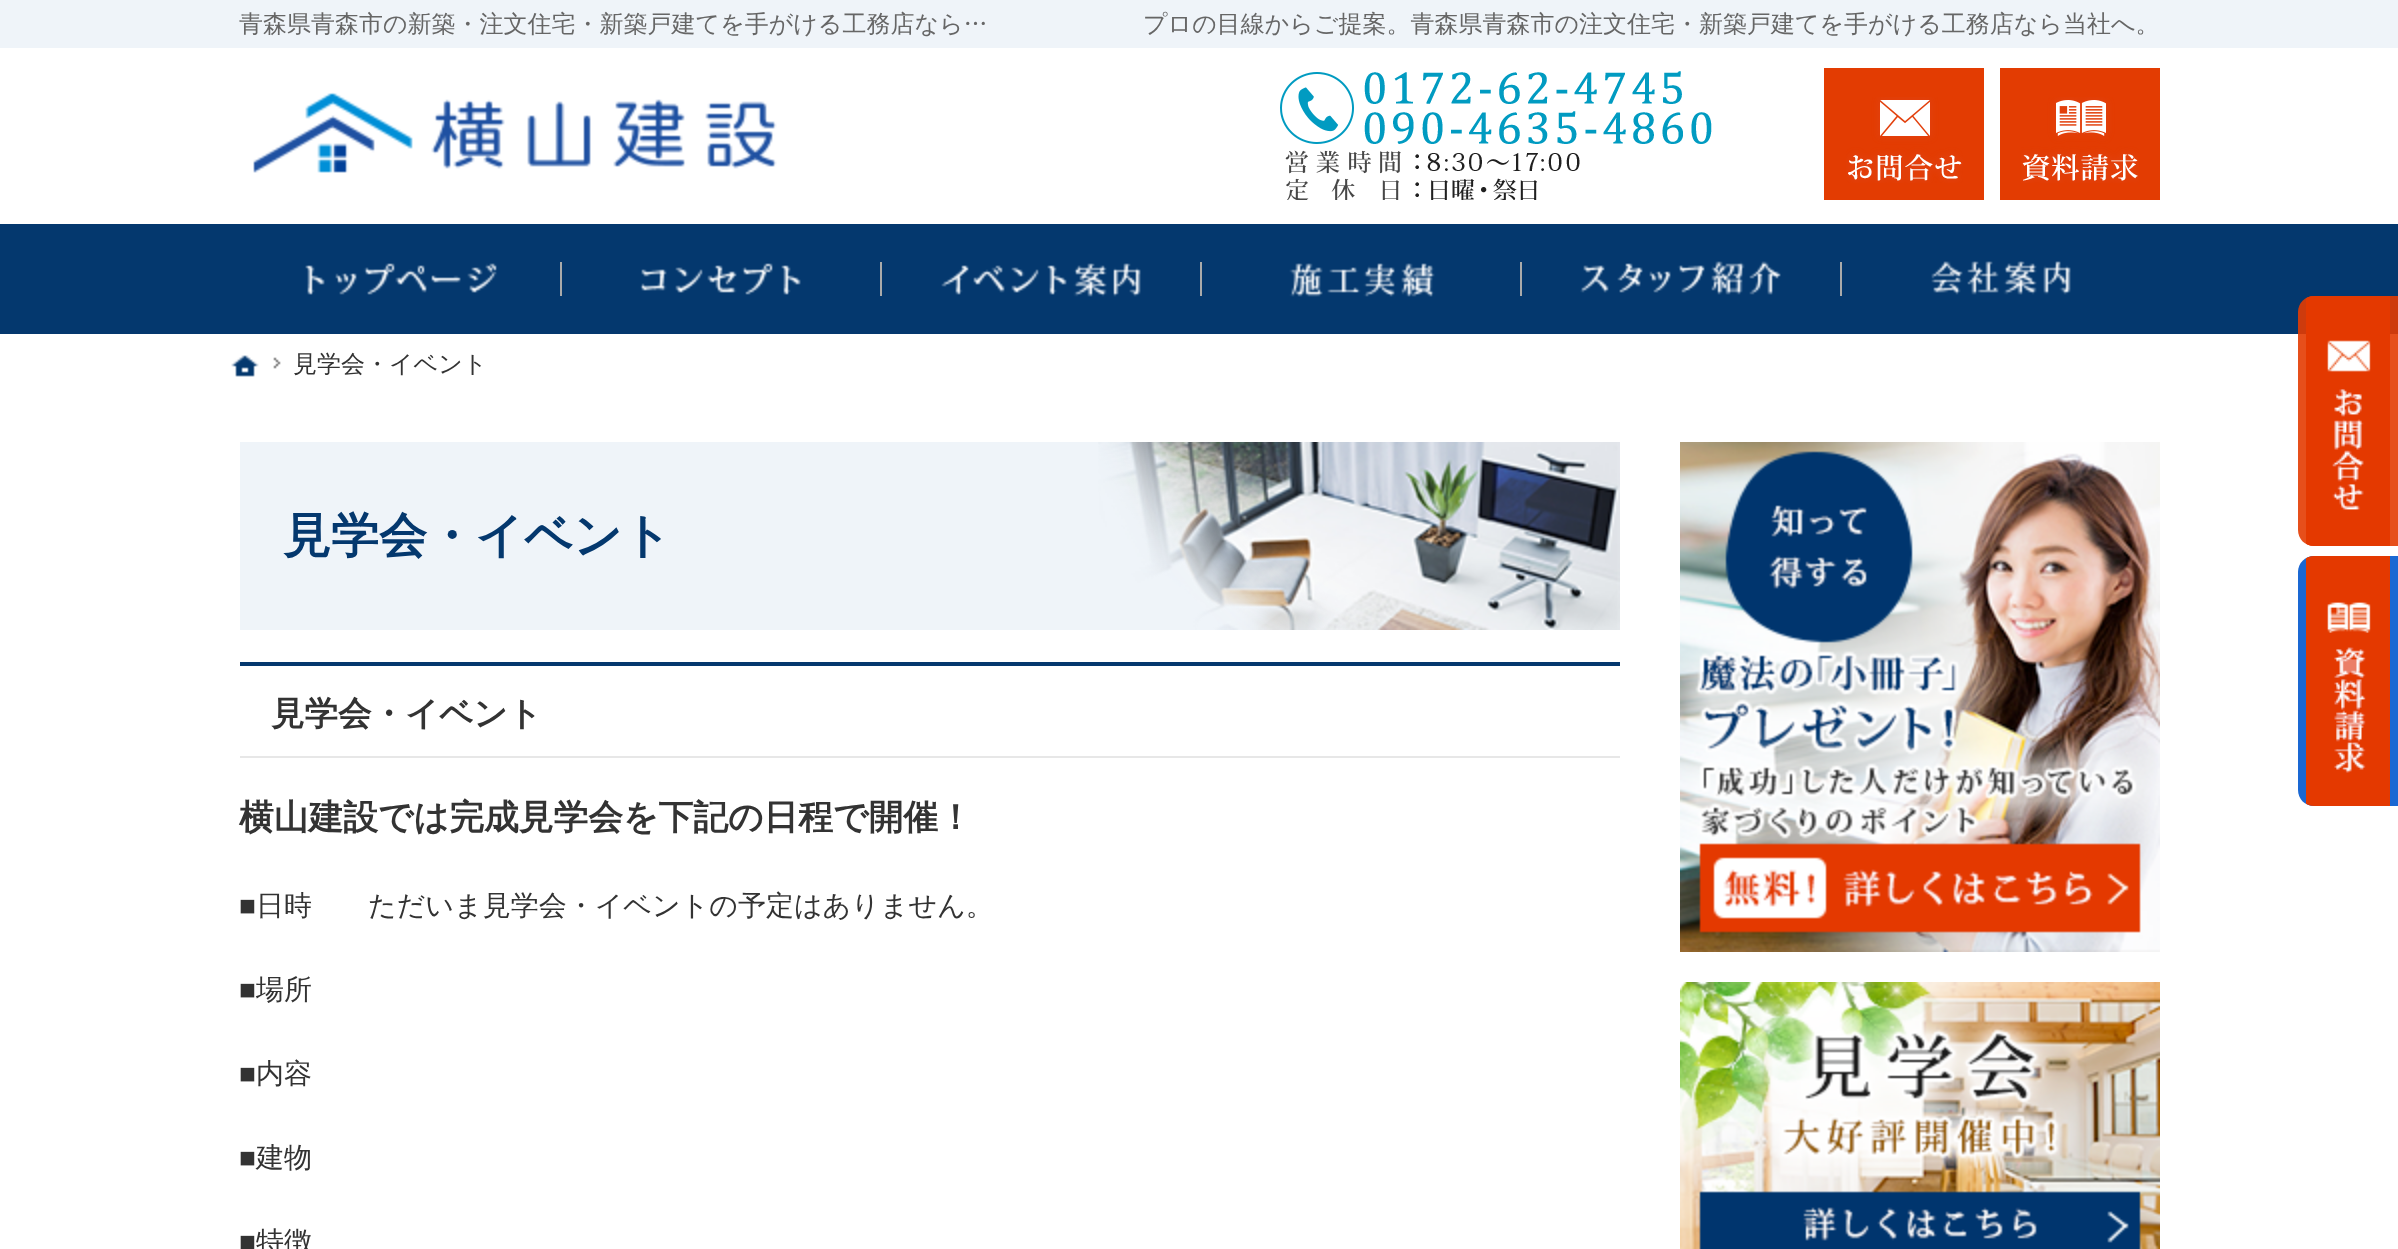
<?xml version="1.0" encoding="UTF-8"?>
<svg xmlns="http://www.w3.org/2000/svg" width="2398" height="1249">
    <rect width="100%" height="100%" fill="#FFFFFF"/>
    <rect x="0" y="0" width="2398" height="48" fill="#EFF4F9"/>
    <text x="239" y="32" font-family="WenQuanYi Zen Hei" font-size="24" font-weight="500" fill="#666666">青森県青森市の新築・注文住宅・新築戸建てを手がける工務店なら…</text>
    <text x="1143" y="32" font-family="WenQuanYi Zen Hei" font-size="24" font-weight="500" fill="#666666">プロの目線からご提案。青森県青森市の注文住宅・新築戸建てを手がける工務店なら当社へ。</text>
    <image x="253" y="92" width="524" height="81" href="img_01.png"/>
    <rect x="240" y="442" width="1380" height="188" fill="#EFF4F9"/>
    <text x="283" y="552" font-family="WenQuanYi Zen Hei" font-size="48" font-weight="700" fill="#04386E">見学会・イベント</text>
    <image x="1098" y="442" width="522" height="188" href="img_02.png"/>
    <rect x="240" y="662" width="1380" height="4" fill="#04386E"/>
    <rect x="240" y="756" width="1380" height="2" fill="#E7E7E7"/>
    <text x="271" y="725" font-family="WenQuanYi Zen Hei" font-size="33.5" font-weight="700" fill="#333333">見学会・イベント</text>
    <text x="239" y="829" font-family="WenQuanYi Zen Hei" font-size="34.75" font-weight="700" fill="#333333">横山建設では完成見学会を下記の日程で開催！</text>
    <text x="239" y="915" font-family="Liberation Sans" font-size="28" fill="#333333">■</text>
    <text x="256" y="915" font-family="WenQuanYi Zen Hei" font-size="28" font-weight="500" fill="#333333">日時　　ただいま見学会・イベントの予定はありません。</text>
    <text x="239" y="999" font-family="Liberation Sans" font-size="28" fill="#333333">■</text>
    <text x="256" y="999" font-family="WenQuanYi Zen Hei" font-size="28" font-weight="500" fill="#333333">場所</text>
    <text x="239" y="1083" font-family="Liberation Sans" font-size="28" fill="#333333">■</text>
    <text x="256" y="1083" font-family="WenQuanYi Zen Hei" font-size="28" font-weight="500" fill="#333333">内容</text>
    <text x="239" y="1167" font-family="Liberation Sans" font-size="28" fill="#333333">■</text>
    <text x="256" y="1167" font-family="WenQuanYi Zen Hei" font-size="28" font-weight="500" fill="#333333">建物</text>
    <text x="239" y="1251" font-family="Liberation Sans" font-size="28" fill="#333333">■</text>
    <text x="256" y="1251" font-family="WenQuanYi Zen Hei" font-size="28" font-weight="500" fill="#333333">特徴</text>
    <image x="1680" y="442" width="480" height="510" href="img_03.png"/>
    <image x="1680" y="982" width="480" height="267" href="img_04.png"/>
    <rect x="0" y="224" width="2398" height="110" fill="#04386E"/>
    <path d="M 2314 296 H 2398 V 546 H 2314 C 2305 546 2298 539 2298 530 V 312 C 2298 303 2305 296 2314 296 Z" fill="#E33C02" fill-opacity="0.9"/>
    <image x="2306" y="296" width="84" height="250" href="img_05.png"/>
    <path d="M 2314 556 H 2398 V 806 H 2314 C 2305 806 2298 799 2298 790 V 572 C 2298 563 2305 556 2314 556 Z" fill="#1A68D3"/>
    <image x="2306" y="556" width="84" height="250" href="img_06.png"/>
    <image x="1280" y="71" width="432" height="129" href="img_07.png"/>
    <rect x="1824" y="68" width="160" height="132" fill="#E33C02"/>
    <image x="1846" y="97" width="117" height="86" href="img_08.png"/>
    <rect x="2000" y="68" width="160" height="132" fill="#E33C02"/>
    <image x="2021" y="97" width="118" height="86" href="img_09.png"/>
    <image x="305" y="263" width="192" height="32" href="img_10.png"/>
    <image x="640" y="263" width="161" height="32" href="img_11.png"/>
    <rect x="560" y="262" width="2" height="34" fill="#AAAAAA"/>
    <image x="941" y="263" width="200" height="34" href="img_12.png"/>
    <rect x="880" y="262" width="2" height="34" fill="#AAAAAA"/>
    <image x="1289" y="263" width="146" height="34" href="img_13.png"/>
    <rect x="1200" y="262" width="2" height="34" fill="#AAAAAA"/>
    <image x="1580" y="261" width="201" height="34" href="img_14.png"/>
    <rect x="1520" y="262" width="2" height="34" fill="#AAAAAA"/>
    <image x="1931" y="261" width="140" height="34" href="img_15.png"/>
    <rect x="1840" y="262" width="2" height="34" fill="#AAAAAA"/>
    <image x="231" y="355" width="28" height="22" href="img_16.png"/>
    <image x="273" y="357" width="8" height="12" href="img_17.png"/>
    <text x="293" y="372" font-family="WenQuanYi Zen Hei" font-size="24" font-weight="500" fill="#333333">見学会・イベント</text>
</svg>
